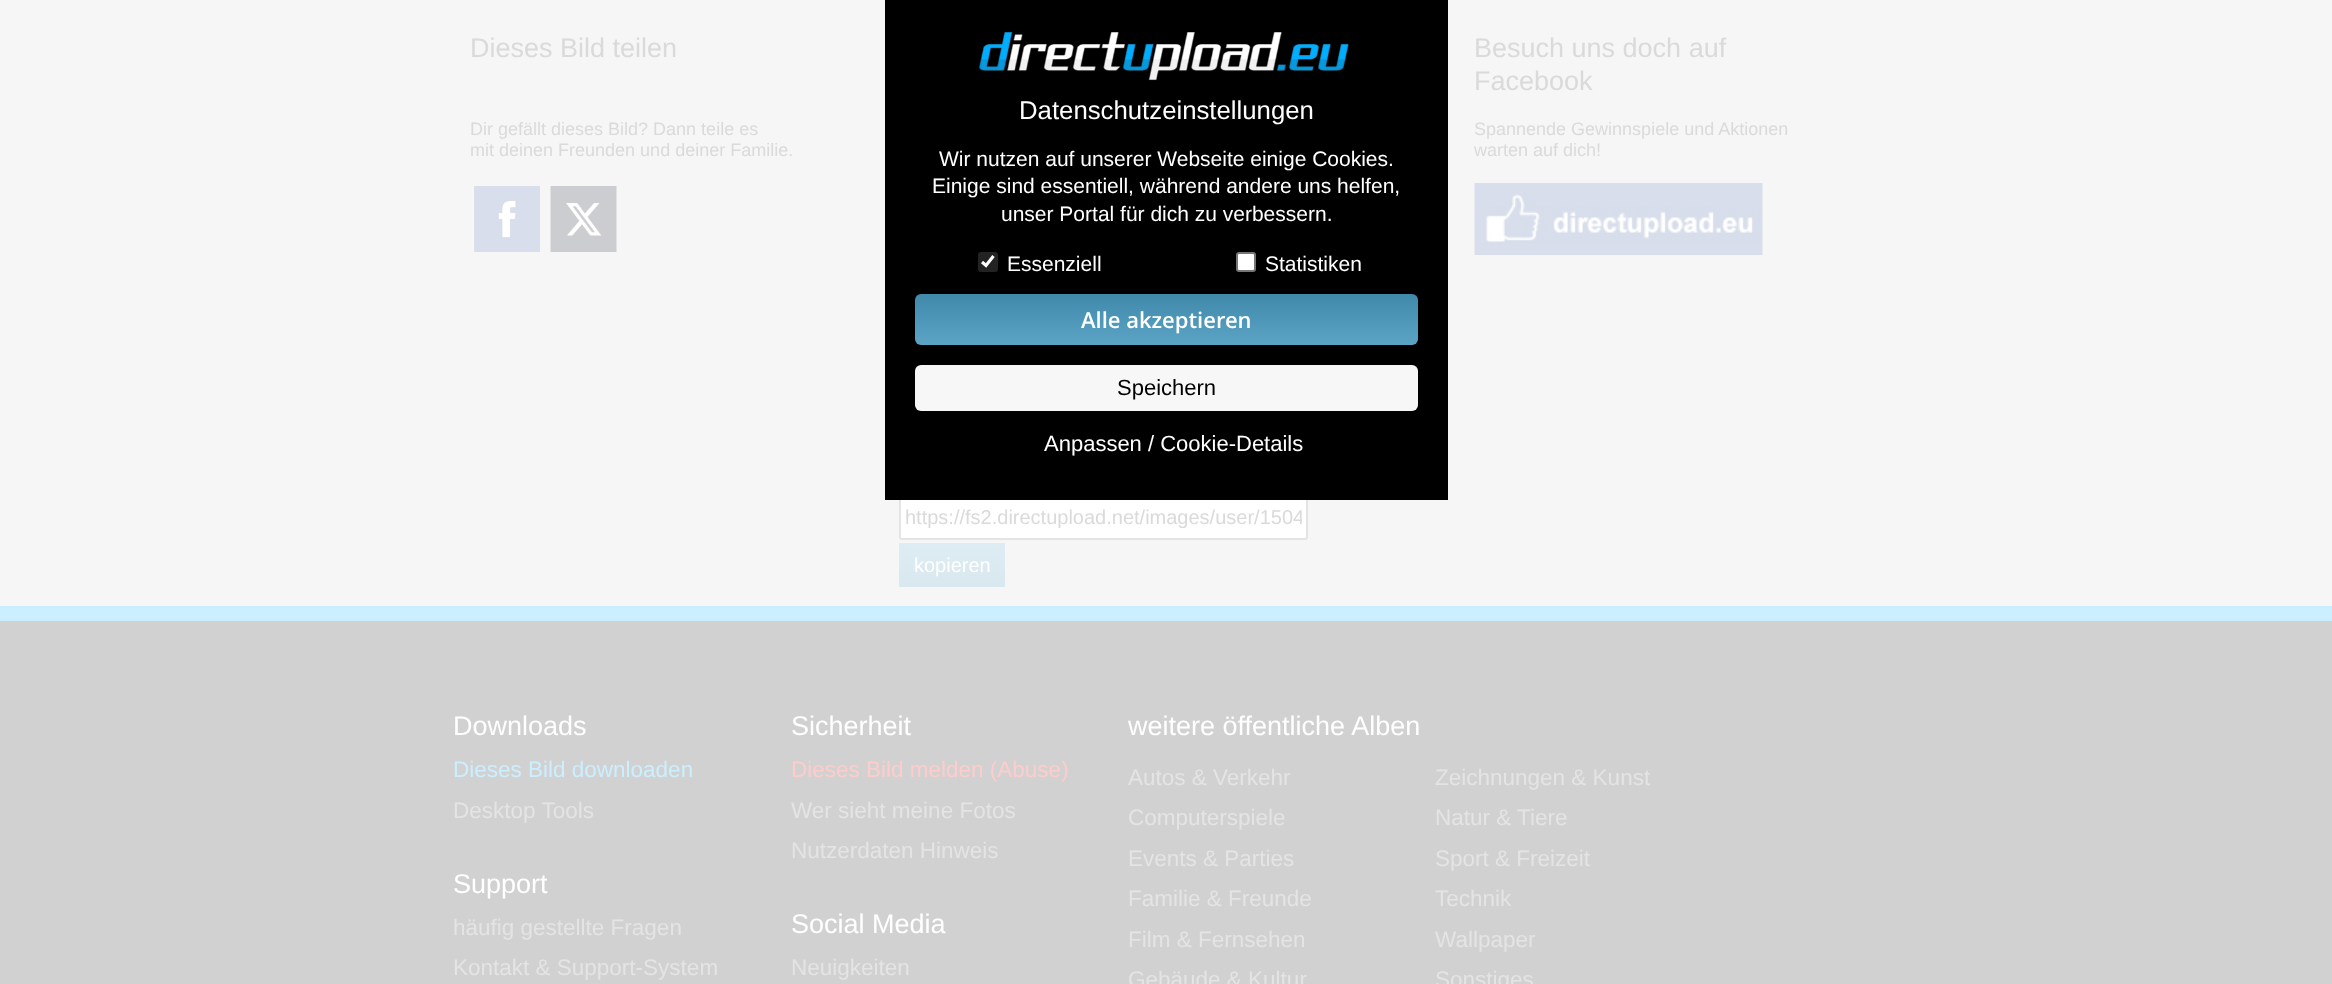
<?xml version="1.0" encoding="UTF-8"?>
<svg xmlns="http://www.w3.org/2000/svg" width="2332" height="984">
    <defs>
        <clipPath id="clip1"><rect x="905" y="506" width="397" height="22"/></clipPath>
        <linearGradient id="g1" gradientUnits="userSpaceOnUse" x1="952" y1="543" x2="952" y2="587"><stop offset="0" stop-color="#DEEDF4"/><stop offset="1" stop-color="#D9E7EE"/></linearGradient>
        <linearGradient id="g2" gradientUnits="userSpaceOnUse" x1="1166" y1="294" x2="1166" y2="345"><stop offset="0" stop-color="#4189AB"/><stop offset="1" stop-color="#5BA4C6"/></linearGradient>
    </defs>
    <rect width="100%" height="100%" fill="#CCEFFF"/>
    <rect x="0" y="0" width="2332" height="606" fill="#F6F6F6"/>
    <text x="470" y="57" font-family="Liberation Sans" font-size="27" fill="#DADADA">Dieses Bild teilen</text>
    <text font-family="Liberation Sans" font-size="18" fill="#DADADA">
        <tspan x="470" y="135">Dir gefällt dieses Bild? Dann teile es</tspan>
        <tspan x="470" y="156">mit deinen Freunden und deiner Familie.</tspan>
    </text>
    <image x="474" y="186" width="66" height="66" href="img_01.png"/>
    <image x="550" y="186" width="67" height="66" href="img_02.png"/>
    <text font-family="Liberation Sans" font-size="27" fill="#DADADA">
        <tspan x="1474" y="57">Besuch uns doch auf</tspan>
        <tspan x="1474" y="90">Facebook</tspan>
    </text>
    <text font-family="Liberation Sans" font-size="18" fill="#DADADA">
        <tspan x="1474" y="135">Spannende Gewinnspiele und Aktionen</tspan>
        <tspan x="1474" y="156">warten auf dich!</tspan>
    </text>
    <image x="1474" y="183" width="289" height="72" href="img_03.png"/>
    <rect x="900" y="495" width="407" height="44" rx="2" fill="#FFFFFF" stroke="#E4E4E4" stroke-width="2"/>
    <g clip-path="url(#clip1)">
        <text x="905" y="524" font-family="Liberation Sans" font-size="20" fill="#DADADA">https://fs2.directupload.net/images/user/1504</text>
    </g>
    <rect x="899" y="543" width="106" height="44" fill="url(#g1)"/>
    <text x="914" y="572" font-family="Liberation Sans" font-size="20" fill="#FFFFFF">kopieren</text>
    <rect x="0" y="621" width="2332" height="363" fill="#D1D1D1"/>
    <text x="453" y="735" font-family="Liberation Sans" font-size="27" fill="#FFFFFF">Downloads</text>
    <text x="453" y="777" font-family="Liberation Sans" font-size="22.5" fill="#CCEFFF">Dieses Bild downloaden</text>
    <text x="453" y="818" font-family="Liberation Sans" font-size="22.5" fill="#E4E4E4">Desktop Tools</text>
    <text x="453" y="893" font-family="Liberation Sans" font-size="27" fill="#FFFFFF">Support</text>
    <text font-family="Liberation Sans" font-size="22.5" fill="#E4E4E4">
        <tspan x="453" y="935">häufig gestellte Fragen</tspan>
        <tspan x="453" y="975">Kontakt &amp; Support-System</tspan>
    </text>
    <text x="791" y="735" font-family="Liberation Sans" font-size="27" fill="#FFFFFF">Sicherheit</text>
    <text x="791" y="777" font-family="Liberation Sans" font-size="22.5" fill="#FFCCCC">Dieses Bild melden (Abuse)</text>
    <text font-family="Liberation Sans" font-size="22.5" fill="#E4E4E4">
        <tspan x="791" y="818">Wer sieht meine Fotos</tspan>
        <tspan x="791" y="858">Nutzerdaten Hinweis</tspan>
    </text>
    <text x="791" y="933" font-family="Liberation Sans" font-size="27" fill="#FFFFFF">Social Media</text>
    <text x="791" y="975" font-family="Liberation Sans" font-size="22.5" fill="#E4E4E4">Neuigkeiten</text>
    <text x="1128" y="735" font-family="Liberation Sans" font-size="27" fill="#FFFFFF">weitere öffentliche Alben</text>
    <text font-family="Liberation Sans" font-size="22.5" fill="#E4E4E4">
        <tspan x="1128" y="785">Autos &amp; Verkehr</tspan>
        <tspan x="1128" y="825">Computerspiele</tspan>
        <tspan x="1128" y="866">Events &amp; Parties</tspan>
        <tspan x="1128" y="906">Familie &amp; Freunde</tspan>
        <tspan x="1128" y="947">Film &amp; Fernsehen</tspan>
        <tspan x="1128" y="987">Gebäude &amp; Kultur</tspan>
    </text>
    <text font-family="Liberation Sans" font-size="22.5" fill="#E4E4E4">
        <tspan x="1435" y="785">Zeichnungen &amp; Kunst</tspan>
        <tspan x="1435" y="825">Natur &amp; Tiere</tspan>
        <tspan x="1435" y="866">Sport &amp; Freizeit</tspan>
        <tspan x="1435" y="906">Technik</tspan>
        <tspan x="1435" y="947">Wallpaper</tspan>
        <tspan x="1435" y="987">Sonstiges</tspan>
    </text>
    <rect x="885" y="0" width="563" height="500" fill="#000000"/>
    <image x="979" y="32" width="370" height="49" href="img_04.png"/>
    <text x="1019" y="119" font-family="Liberation Sans" font-size="25.75" fill="#FFFFFF">Datenschutzeinstellungen</text>
    <text x="939" y="166" font-family="Liberation Sans" font-size="21" fill="#FFFFFF">Wir nutzen auf unserer Webseite einige Cookies.</text>
    <text x="932" y="193" font-family="Liberation Sans" font-size="21" fill="#FFFFFF">Einige sind essentiell, während andere uns helfen,</text>
    <text x="1001" y="221" font-family="Liberation Sans" font-size="21" fill="#FFFFFF">unser Portal für dich zu verbessern.</text>
    <rect x="978" y="252" width="20" height="20" rx="3" fill="#232323"/>
    <path d="M 982 262 L 986 265.5 L 993.5 256" fill="none" stroke="#FFFFFF" stroke-width="3.1"/>
    <text x="1007" y="271" font-family="Liberation Sans" font-size="21" fill="#FFFFFF">Essenziell</text>
    <rect x="1237" y="253" width="18" height="18" rx="2" fill="#FFFFFF" stroke="#767676" stroke-width="2"/>
    <text x="1265" y="271" font-family="Liberation Sans" font-size="21" fill="#FFFFFF">Statistiken</text>
    <rect x="915" y="294" width="503" height="51" rx="6" fill="url(#g2)"/>
    <text x="1081" y="328" font-family="Open Sans" font-size="22" font-weight="600" fill="#FFFFFF">Alle akzeptieren</text>
    <rect x="915" y="365" width="503" height="46" rx="6" fill="#F7F7F7"/>
    <text x="1117" y="395" font-family="Liberation Sans" font-size="22" fill="#000000">Speichern</text>
    <text x="1044" y="451" font-family="Liberation Sans" font-size="22" fill="#FFFFFF">Anpassen / Cookie-Details</text>
</svg>
